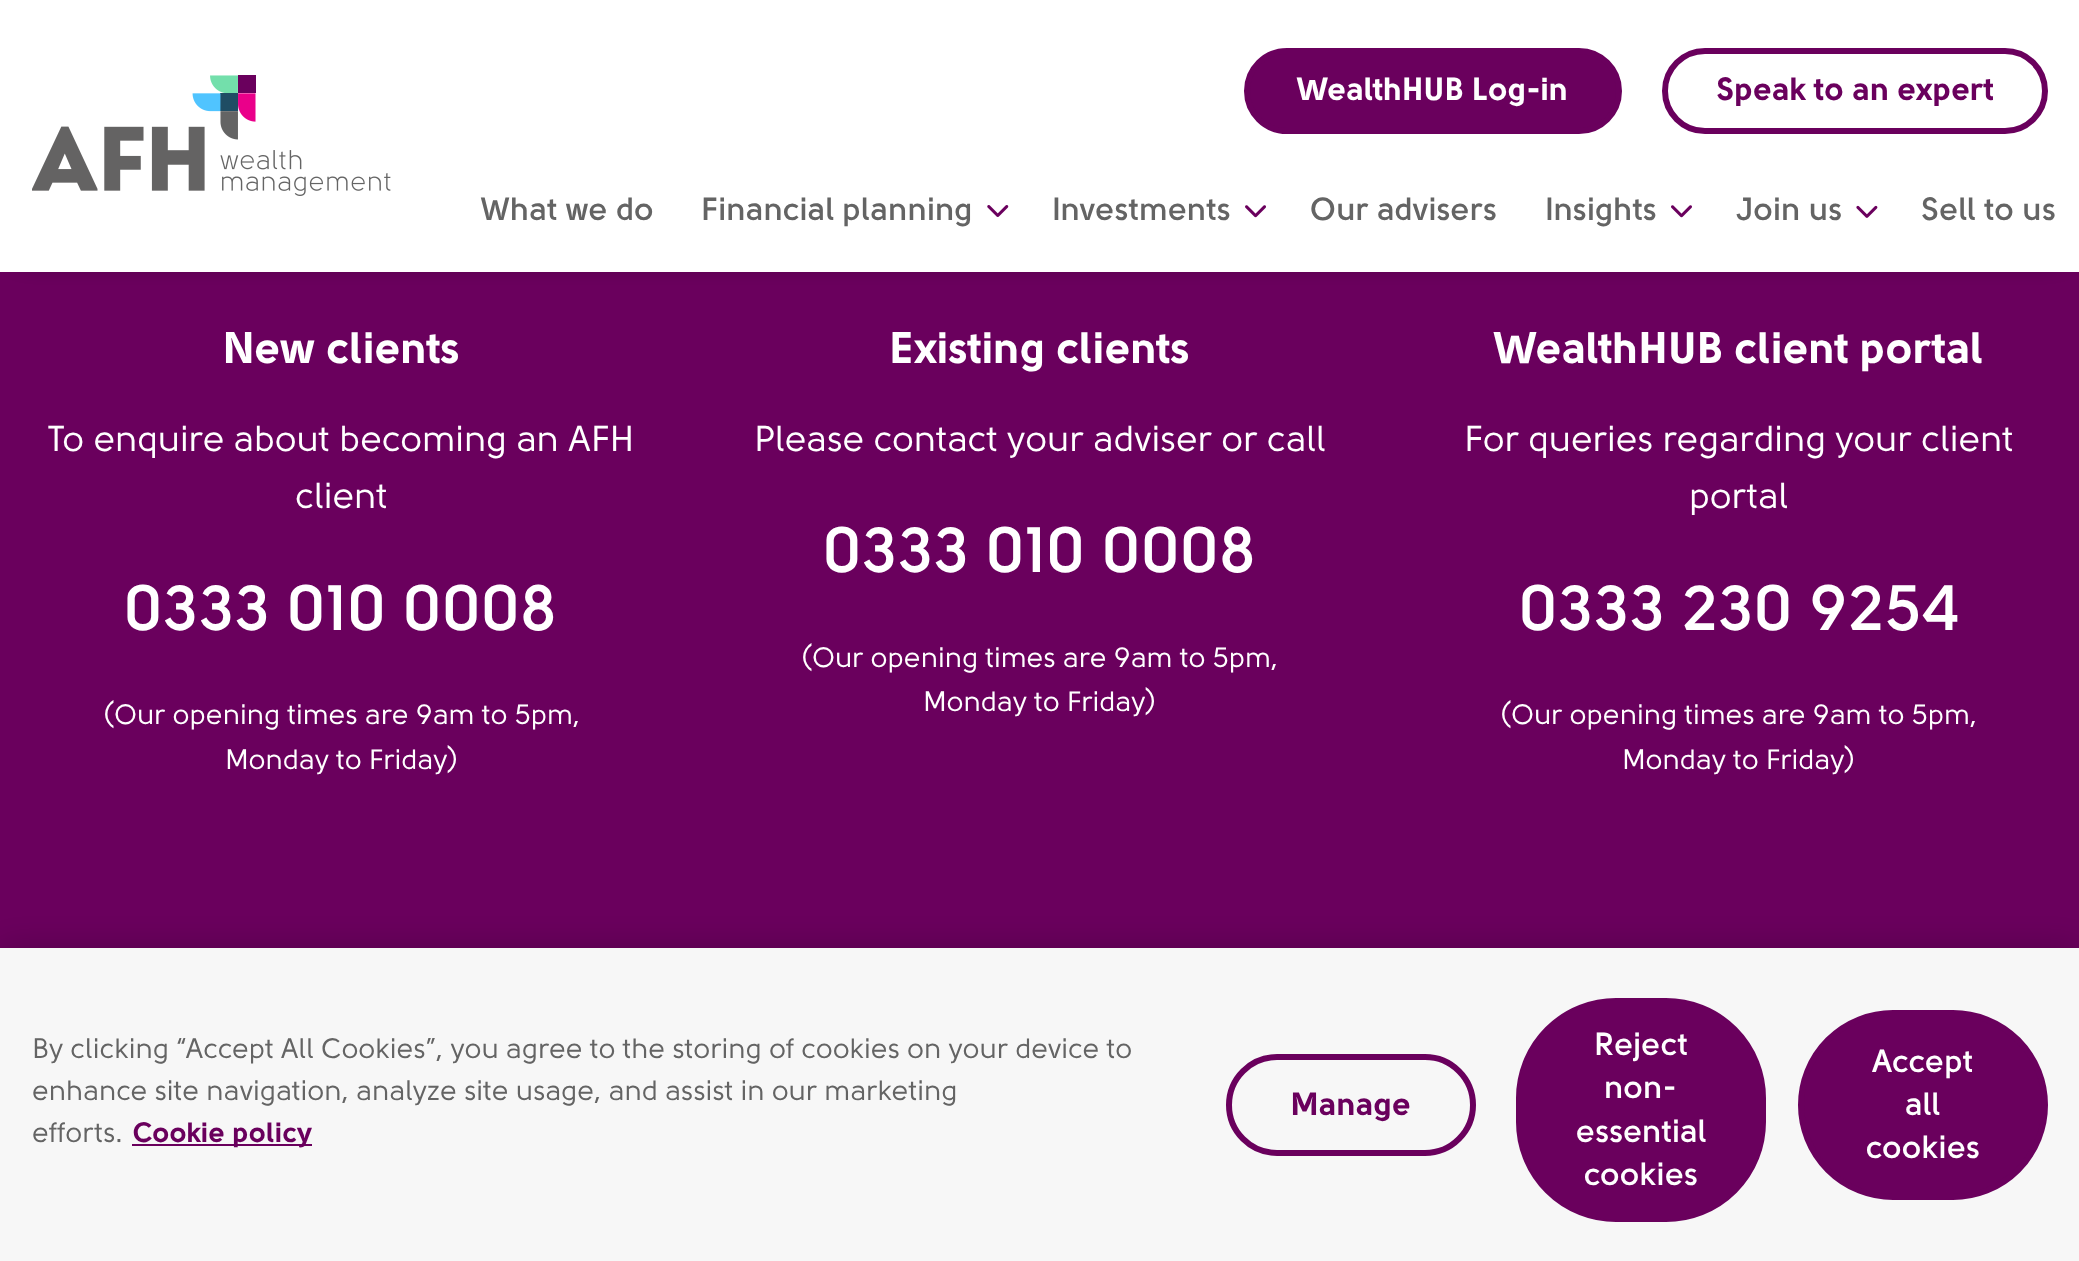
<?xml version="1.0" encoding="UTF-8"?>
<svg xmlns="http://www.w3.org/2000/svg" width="2079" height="1261">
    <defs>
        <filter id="blur1" x="-50%" y="-200%" width="200%" height="500%"><feGaussianBlur stdDeviation="15"/></filter>
        <filter id="blur2" x="-50%" y="-200%" width="200%" height="500%"><feGaussianBlur stdDeviation="18"/></filter>
    </defs>
    <rect width="100%" height="100%" fill="#6A005D"/>
    <rect x="20" y="20" width="2040" height="232" fill="#000000" filter="url(#blur1)"/>
    <rect x="0" y="0" width="2079" height="272" fill="#FFFFFF"/>
    <image x="32" y="75" width="359" height="121" href="img_01.png"/>
    <rect x="1247" y="51" width="372" height="80" rx="40" fill="#6A005D" stroke="#6A005D" stroke-width="6"/>
    <text x="1297" y="100" font-family="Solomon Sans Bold" font-size="32" font-weight="700" fill="#FFFFFF">WealthHUB Log-in</text>
    <rect x="1665" y="51" width="380" height="80" rx="40" fill="none" stroke="#6A005D" stroke-width="6"/>
    <text x="1717" y="100" font-family="Solomon Sans Bold" font-size="32" font-weight="700" fill="#6A005D">Speak to an expert</text>
    <text x="480" y="220" font-family="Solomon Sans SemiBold" font-size="32" font-weight="600" fill="#646464">What we do</text>
    <text x="701" y="220" font-family="Solomon Sans SemiBold" font-size="32" font-weight="600" fill="#646464">Financial planning</text>
    <image x="987" y="205" width="22" height="12" href="img_02.png"/>
    <text x="1052" y="220" font-family="Solomon Sans SemiBold" font-size="32" font-weight="600" fill="#646464">Investments</text>
    <image x="1245" y="205" width="21" height="13" href="img_03.png"/>
    <text x="1310" y="220" font-family="Solomon Sans SemiBold" font-size="32" font-weight="600" fill="#646464">Our advisers</text>
    <text x="1545" y="220" font-family="Solomon Sans SemiBold" font-size="32" font-weight="600" fill="#646464">Insights</text>
    <image x="1671" y="205" width="21" height="13" href="img_04.png"/>
    <text x="1736" y="220" font-family="Solomon Sans SemiBold" font-size="32" font-weight="600" fill="#646464">Join us</text>
    <image x="1856" y="205" width="22" height="13" href="img_05.png"/>
    <text x="1921" y="220" font-family="Solomon Sans SemiBold" font-size="32" font-weight="600" fill="#646464">Sell to us</text>
    <text x="223" y="363" font-family="Solomon Sans Bold" font-size="44" font-weight="700" fill="#FFFFFF">New clients</text>
    <text x="48" y="451" font-family="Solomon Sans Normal" font-size="36" fill="#FFFFFF">To enquire about becoming an AFH</text>
    <text x="295" y="508" font-family="Solomon Sans Normal" font-size="36" fill="#FFFFFF">client</text>
    <text x="124" y="630" font-family="Solomon Sans SemiBold" font-size="64" font-weight="600" fill="#FFFFFF">0333 010 0008</text>
    <text x="103" y="724" font-family="Solomon Sans Normal" font-size="28" fill="#FFFFFF">(Our opening times are 9am to 5pm,</text>
    <text x="225" y="769" font-family="Solomon Sans Normal" font-size="28" fill="#FFFFFF">Monday to Friday)</text>
    <text x="890" y="363" font-family="Solomon Sans Bold" font-size="44" font-weight="700" fill="#FFFFFF">Existing clients</text>
    <text x="754" y="451" font-family="Solomon Sans Normal" font-size="36" fill="#FFFFFF">Please contact your adviser or call</text>
    <text x="823" y="572" font-family="Solomon Sans SemiBold" font-size="64" font-weight="600" fill="#FFFFFF">0333 010 0008</text>
    <text x="801" y="667" font-family="Solomon Sans Normal" font-size="28" fill="#FFFFFF">(Our opening times are 9am to 5pm,</text>
    <text x="923" y="711" font-family="Solomon Sans Normal" font-size="28" fill="#FFFFFF">Monday to Friday)</text>
    <text x="1494" y="363" font-family="Solomon Sans Bold" font-size="44" font-weight="700" fill="#FFFFFF">WealthHUB client portal</text>
    <text x="1464" y="451" font-family="Solomon Sans Normal" font-size="36" fill="#FFFFFF">For queries regarding your client</text>
    <text x="1689" y="508" font-family="Solomon Sans Normal" font-size="36" fill="#FFFFFF">portal</text>
    <text x="1519" y="630" font-family="Solomon Sans SemiBold" font-size="64" font-weight="600" fill="#FFFFFF">0333 230 9254</text>
    <text x="1500" y="724" font-family="Solomon Sans Normal" font-size="28" fill="#FFFFFF">(Our opening times are 9am to 5pm,</text>
    <text x="1622" y="769" font-family="Solomon Sans Normal" font-size="28" fill="#FFFFFF">Monday to Friday)</text>
    <rect x="0" y="948" width="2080" height="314" fill="#000000" fill-opacity="0.2" filter="url(#blur2)"/>
    <rect x="0" y="948" width="2079" height="313" fill="#F7F7F7"/>
    <text font-family="Solomon Sans Normal" font-size="28" fill="#646464">
        <tspan x="32" y="1058">By clicking “Accept All Cookies”, you agree to the storing of cookies on your device to</tspan>
        <tspan x="32" y="1100">enhance site navigation, analyze site usage, and assist in our marketing</tspan>
        <tspan x="32" y="1142">efforts.</tspan>
    </text>
    <rect x="132" y="1144" width="180" height="2" fill="#6A005D"/>
    <text x="133" y="1142" font-family="Solomon Sans Bold" font-size="28" font-weight="700" fill="#6A005D">Cookie policy</text>
    <rect x="1229" y="1057" width="244" height="96" rx="48" fill="none" stroke="#6A005D" stroke-width="6"/>
    <text x="1291" y="1115" font-family="Solomon Sans Bold" font-size="32" font-weight="700" fill="#6A005D">Manage</text>
    <rect x="1517" y="999" width="248" height="222" rx="99" fill="#6A005D" stroke="#6A005D" stroke-width="2"/>
    <text x="1594" y="1055" font-family="Solomon Sans SemiBold" font-size="32" font-weight="600" fill="#FFFFFF">Reject</text>
    <text x="1604" y="1098" font-family="Solomon Sans SemiBold" font-size="32" font-weight="600" fill="#FFFFFF">non-</text>
    <text x="1576" y="1142" font-family="Solomon Sans SemiBold" font-size="32" font-weight="600" fill="#FFFFFF">essential</text>
    <text x="1584" y="1185" font-family="Solomon Sans SemiBold" font-size="32" font-weight="600" fill="#FFFFFF">cookies</text>
    <rect x="1801" y="1013" width="244" height="184" rx="92" fill="#6A005D" stroke="#6A005D" stroke-width="6"/>
    <text x="1872" y="1072" font-family="Solomon Sans SemiBold" font-size="32" font-weight="600" fill="#FFFFFF">Accept</text>
    <text x="1905" y="1115" font-family="Solomon Sans SemiBold" font-size="32" font-weight="600" fill="#FFFFFF">all</text>
    <text x="1866" y="1158" font-family="Solomon Sans SemiBold" font-size="32" font-weight="600" fill="#FFFFFF">cookies</text>
</svg>
